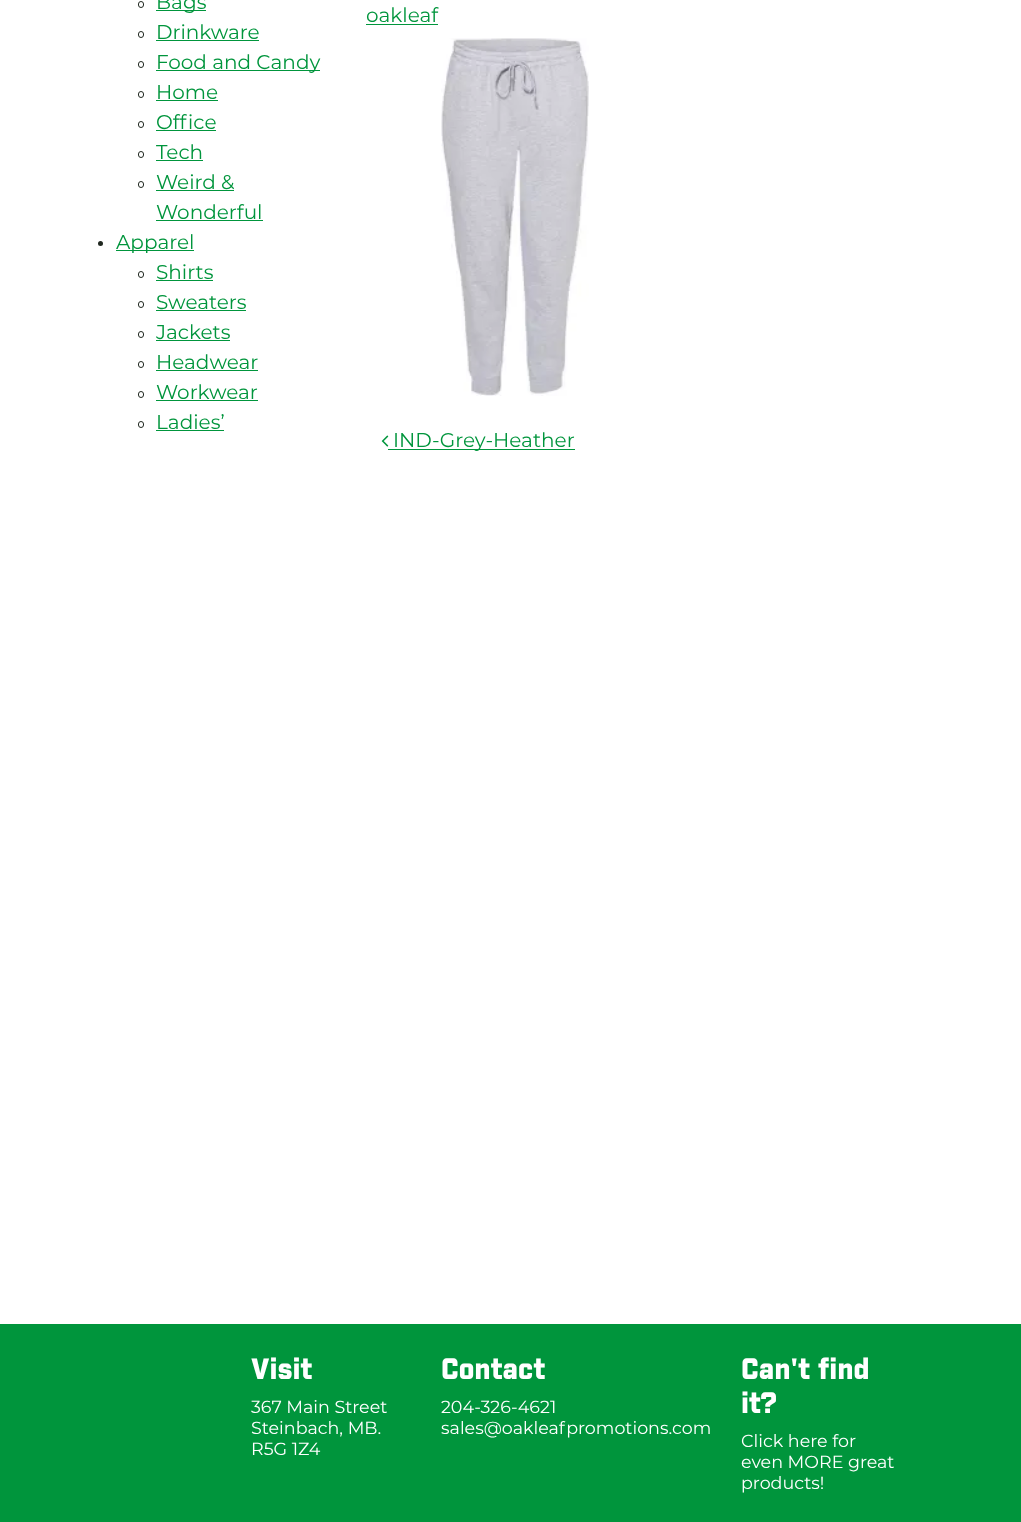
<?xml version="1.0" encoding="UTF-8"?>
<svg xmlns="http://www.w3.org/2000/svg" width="1021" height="1522">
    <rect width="100%" height="100%" fill="#FFFFFF"/>
    <rect x="138.5" y="1.5" width="5" height="6" rx="2.5" fill="none" stroke="#202820"/>
    <rect x="156" y="10" width="50" height="1" fill="#00953C"/>
    <text x="156" y="9" font-family="Montserrat" font-size="20" fill="#00953C">Bags</text>
    <rect x="138.5" y="31.5" width="5" height="6" rx="2.5" fill="none" stroke="#202820"/>
    <text x="156" y="39" font-family="Montserrat" font-size="20" fill="#00953C">Drinkware</text>
    <rect x="156" y="40" width="103" height="1" fill="#00953C"/>
    <rect x="138.5" y="61.5" width="5" height="6" rx="2.5" fill="none" stroke="#202820"/>
    <rect x="156" y="70" width="164" height="1" fill="#00953C"/>
    <text x="156" y="69" font-family="Montserrat" font-size="20" fill="#00953C">Food and Candy</text>
    <rect x="138.5" y="91.5" width="5" height="6" rx="2.5" fill="none" stroke="#202820"/>
    <text x="156" y="99" font-family="Montserrat" font-size="20" fill="#00953C">Home</text>
    <rect x="156" y="100" width="62" height="1" fill="#00953C"/>
    <rect x="138.5" y="121.5" width="5" height="6" rx="2.5" fill="none" stroke="#202820"/>
    <text x="156" y="129" font-family="Montserrat" font-size="20" fill="#00953C">Office</text>
    <rect x="156" y="130" width="60" height="1" fill="#00953C"/>
    <rect x="138.5" y="151.5" width="5" height="6" rx="2.5" fill="none" stroke="#202820"/>
    <text x="156" y="159" font-family="Montserrat" font-size="20" fill="#00953C">Tech</text>
    <rect x="156" y="160" width="47" height="1" fill="#00953C"/>
    <rect x="138.5" y="181.5" width="5" height="6" rx="2.5" fill="none" stroke="#202820"/>
    <text x="156" y="189" font-family="Montserrat" font-size="20" fill="#00953C">Weird &amp;</text>
    <rect x="156" y="190" width="78" height="1" fill="#00953C"/>
    <text x="156" y="219" font-family="Montserrat" font-size="20" fill="#00953C">Wonderful</text>
    <rect x="156" y="220" width="107" height="1" fill="#00953C"/>
    <circle cx="100.5" cy="243.5" r="2.5" fill="#202820"/>
    <rect x="116" y="250" width="78" height="1" fill="#00953C"/>
    <text x="116" y="249" font-family="Montserrat" font-size="20" fill="#00953C">Apparel</text>
    <rect x="138.5" y="271.5" width="5" height="6" rx="2.5" fill="none" stroke="#202820"/>
    <text x="156" y="279" font-family="Montserrat" font-size="20" fill="#00953C">Shirts</text>
    <rect x="156" y="280" width="57" height="1" fill="#00953C"/>
    <rect x="138.5" y="301.5" width="5" height="6" rx="2.5" fill="none" stroke="#202820"/>
    <text x="156" y="309" font-family="Montserrat" font-size="20" fill="#00953C">Sweaters</text>
    <rect x="156" y="310" width="90" height="1" fill="#00953C"/>
    <rect x="138.5" y="331.5" width="5" height="6" rx="2.5" fill="none" stroke="#202820"/>
    <text x="156" y="339" font-family="Montserrat" font-size="20" fill="#00953C">Jackets</text>
    <rect x="156" y="340" width="74" height="1" fill="#00953C"/>
    <rect x="138.5" y="361.5" width="5" height="6" rx="2.5" fill="none" stroke="#202820"/>
    <text x="156" y="369" font-family="Montserrat" font-size="20" fill="#00953C">Headwear</text>
    <rect x="156" y="370" width="102" height="1" fill="#00953C"/>
    <rect x="138.5" y="391.5" width="5" height="6" rx="2.5" fill="none" stroke="#202820"/>
    <text x="156" y="399" font-family="Montserrat" font-size="20" fill="#00953C">Workwear</text>
    <rect x="156" y="400" width="102" height="1" fill="#00953C"/>
    <rect x="138.5" y="421.5" width="5" height="6" rx="2.5" fill="none" stroke="#202820"/>
    <text x="156" y="429" font-family="Montserrat" font-size="20" fill="#00953C">Ladies’</text>
    <rect x="156" y="430" width="68" height="1" fill="#00953C"/>
    <text x="366" y="22" font-family="Montserrat" font-size="20" fill="#00953C">oakleaf</text>
    <rect x="366" y="24" width="72" height="1" fill="#00953C"/>
    <image x="441" y="38" width="148" height="358" href="img_01.png"/>
    <image x="381" y="435" width="8" height="12" href="img_02.png"/>
    <rect x="388" y="449" width="187" height="1" fill="#00953C"/>
    <text x="393" y="447" font-family="Montserrat" font-size="20" fill="#00953C">IND-Grey-Heather</text>
    <rect x="0" y="1324" width="1021" height="198" fill="#00953C"/>
    <text x="251" y="1379" font-family="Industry" font-size="28.5" font-weight="900" fill="#FFFFFF">Visit</text>
    <text font-family="Montserrat" font-size="17.5" fill="#FFFFFF">
        <tspan x="251" y="1413">367 Main Street</tspan>
        <tspan x="251" y="1434">Steinbach, MB.</tspan>
        <tspan x="251" y="1455">R5G 1Z4</tspan>
    </text>
    <text x="441" y="1379" font-family="Industry" font-size="28.5" font-weight="900" fill="#FFFFFF">Contact</text>
    <text font-family="Montserrat" font-size="17.5" fill="#FFFFFF">
        <tspan x="441" y="1413">204-326-4621</tspan>
        <tspan x="441" y="1434">sales@oakleafpromotions.com</tspan>
    </text>
    <text font-family="Industry" font-size="28.5" font-weight="900" fill="#FFFFFF">
        <tspan x="741" y="1379">Can't find</tspan>
        <tspan x="741" y="1413">it?</tspan>
    </text>
    <text font-family="Montserrat" font-size="17.5" fill="#FFFFFF">
        <tspan x="741" y="1447">Click here for</tspan>
        <tspan x="741" y="1468">even MORE great</tspan>
        <tspan x="741" y="1489">products!</tspan>
    </text>
</svg>
